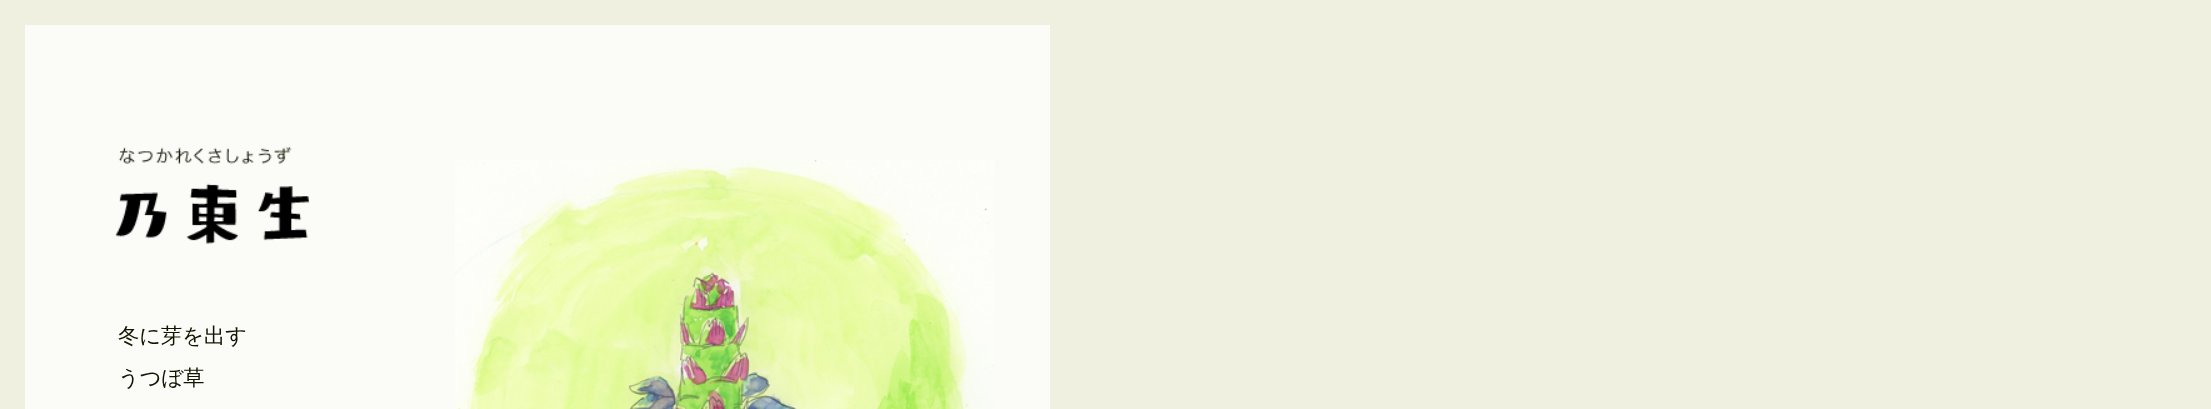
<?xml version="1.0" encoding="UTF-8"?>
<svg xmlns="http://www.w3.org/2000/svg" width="2211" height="409">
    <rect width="100%" height="100%" fill="#F0F0E1"/>
    <rect x="25" y="25" width="1025" height="384" fill="#FBFCF8"/>
    <image x="115" y="147" width="195" height="97" href="img_01.png"/>
    <text font-family="WenQuanYi Zen Hei" font-size="21.25" font-weight="500" fill="#131302">
        <tspan x="118" y="343">冬に芽を出す</tspan>
        <tspan x="118" y="385">うつぼ草</tspan>
    </text>
    <image x="455" y="160" width="539" height="249" href="img_02.png"/>
</svg>
